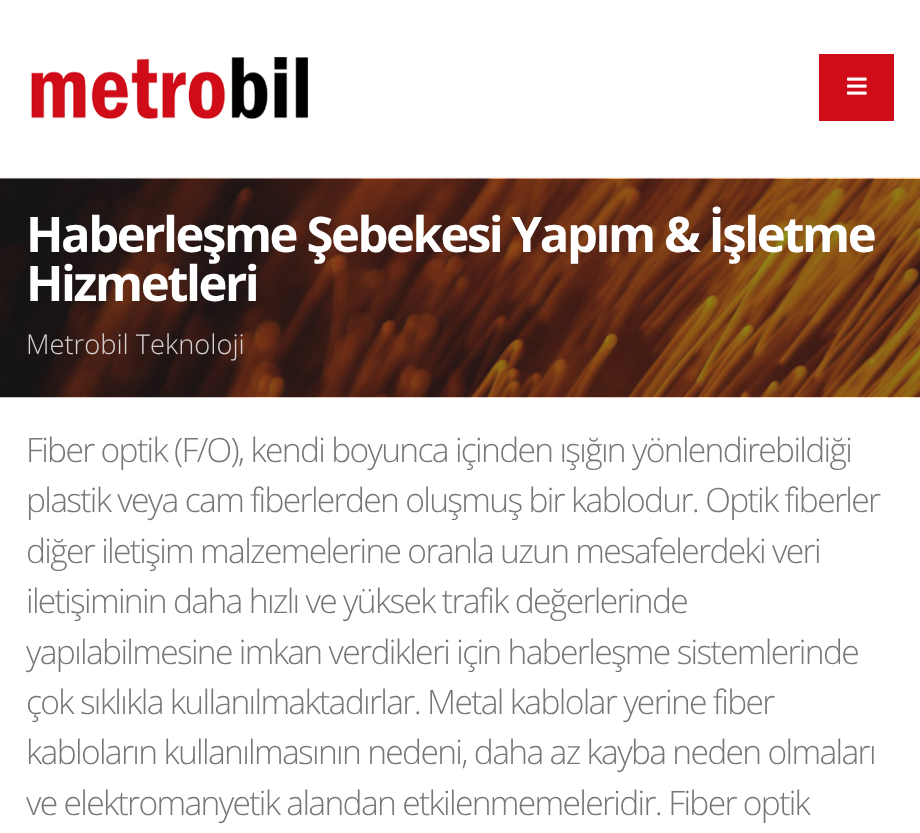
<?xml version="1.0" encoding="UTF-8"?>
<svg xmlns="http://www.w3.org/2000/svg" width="920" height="833">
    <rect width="100%" height="100%" fill="#FFFFFF"/>
    <image x="31" y="57" width="277" height="62" href="img_01.png"/>
    <rect x="819" y="54" width="75" height="67" fill="#D00C18"/>
    <image x="847" y="77" width="20" height="18" href="img_02.png"/>
    <rect x="0" y="177" width="920" height="2" fill="#F0F0F0"/>
    <image x="0" y="178" width="920" height="220" href="img_03.png"/>
    <text font-family="Open Sans" font-size="49" font-weight="700" letter-spacing="-2.45" fill="#FFFFFF">
        <tspan x="26" y="252">Haberleşme Şebekesi Yapım &amp; İşletme</tspan>
        <tspan x="26" y="301">Hizmetleri</tspan>
    </text>
    <text x="26" y="354" font-family="Open Sans" font-size="27.25" font-weight="300" fill="#D6D1D0">Metrobil Teknoloji</text>
    <text font-family="Open Sans" font-size="33.6" font-weight="300" letter-spacing="-1.68" fill="#777777">
        <tspan x="26" y="462">Fiber optik (F/O), kendi boyunca içinden ışığın yönlendirebildiği</tspan>
        <tspan x="26" y="512">plastik veya cam fiberlerden oluşmuş bir kablodur. Optik fiberler</tspan>
        <tspan x="26" y="563">diğer iletişim malzemelerine oranla uzun mesafelerdeki veri</tspan>
        <tspan x="26" y="613">iletişiminin daha hızlı ve yüksek trafik değerlerinde</tspan>
        <tspan x="26" y="664">yapılabilmesine imkan verdikleri için haberleşme sistemlerinde</tspan>
        <tspan x="26" y="714">çok sıklıkla kullanılmaktadırlar. Metal kablolar yerine fiber</tspan>
        <tspan x="26" y="764">kabloların kullanılmasının nedeni, daha az kayba neden olmaları</tspan>
        <tspan x="26" y="815">ve elektromanyetik alandan etkilenmemeleridir. Fiber optik</tspan>
    </text>
</svg>
